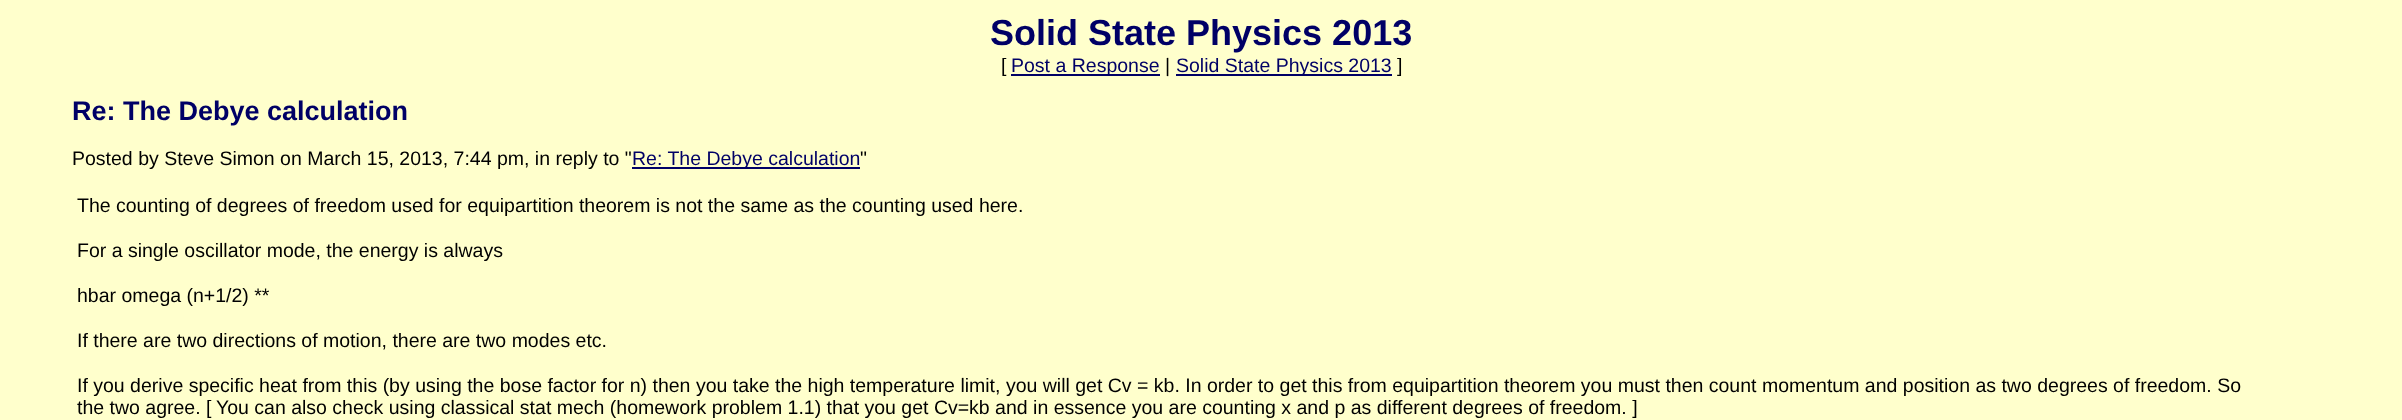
<?xml version="1.0" encoding="UTF-8"?>
<svg xmlns="http://www.w3.org/2000/svg" width="2402" height="420">
    <rect width="100%" height="100%" fill="#FFFFCC"/>
    <text x="990" y="45" font-family="Liberation Sans" font-size="36" font-weight="700" fill="#000066">Solid State Physics 2013</text>
    <text x="1001" y="72" font-family="Liberation Sans" font-size="19.5" fill="#000000">[</text>
    <rect x="1011" y="74" width="149" height="2" fill="#000066"/>
    <text x="1011" y="72" font-family="Liberation Sans" font-size="19.5" fill="#000066">Post a Response</text>
    <text x="1165" y="72" font-family="Liberation Sans" font-size="19.5" fill="#000000">|</text>
    <rect x="1176" y="74" width="216" height="2" fill="#000066"/>
    <text x="1176" y="72" font-family="Liberation Sans" font-size="19.5" fill="#000066">Solid State Physics 2013</text>
    <text x="1397" y="72" font-family="Liberation Sans" font-size="19.5" fill="#000000">]</text>
    <text x="72" y="120" font-family="Liberation Sans" font-size="27" font-weight="700" fill="#000066">Re: The Debye calculation</text>
    <text x="72" y="165" font-family="Liberation Sans" font-size="19.5" fill="#000000">Posted by Steve Simon on March 15, 2013, 7:44 pm, in reply to "</text>
    <rect x="632" y="167" width="228" height="2" fill="#000066"/>
    <text x="632" y="165" font-family="Liberation Sans" font-size="19.5" fill="#000066">Re: The Debye calculation</text>
    <text x="860" y="165" font-family="Liberation Sans" font-size="19.5" fill="#000000">"</text>
    <text x="77" y="212" font-family="Liberation Sans" font-size="19.5" fill="#000000">The counting of degrees of freedom used for equipartition theorem is not the same as the counting used here.</text>
    <text x="77" y="257" font-family="Liberation Sans" font-size="19.5" fill="#000000">For a single oscillator mode, the energy is always</text>
    <text x="77" y="302" font-family="Liberation Sans" font-size="19.5" fill="#000000">hbar omega (n+1/2) **</text>
    <text x="77" y="347" font-family="Liberation Sans" font-size="19.5" fill="#000000">If there are two directions of motion, there are two modes etc.</text>
    <text font-family="Liberation Sans" font-size="19.5" fill="#000000">
        <tspan x="77" y="392">If you derive specific heat from this (by using the bose factor for n) then you take the high temperature limit, you will get Cv = kb. In order to get this from equipartition theorem you must then count momentum and position as two degrees of freedom. So</tspan>
        <tspan x="77" y="414">the two agree. [</tspan>
    </text>
    <text x="216" y="414" font-family="Liberation Sans" font-size="19.5" fill="#000000">You can also check using classical stat mech (homework problem 1.1) that you get Cv=kb and in essence you are counting x and p as different degrees of freedom. ]</text>
</svg>
